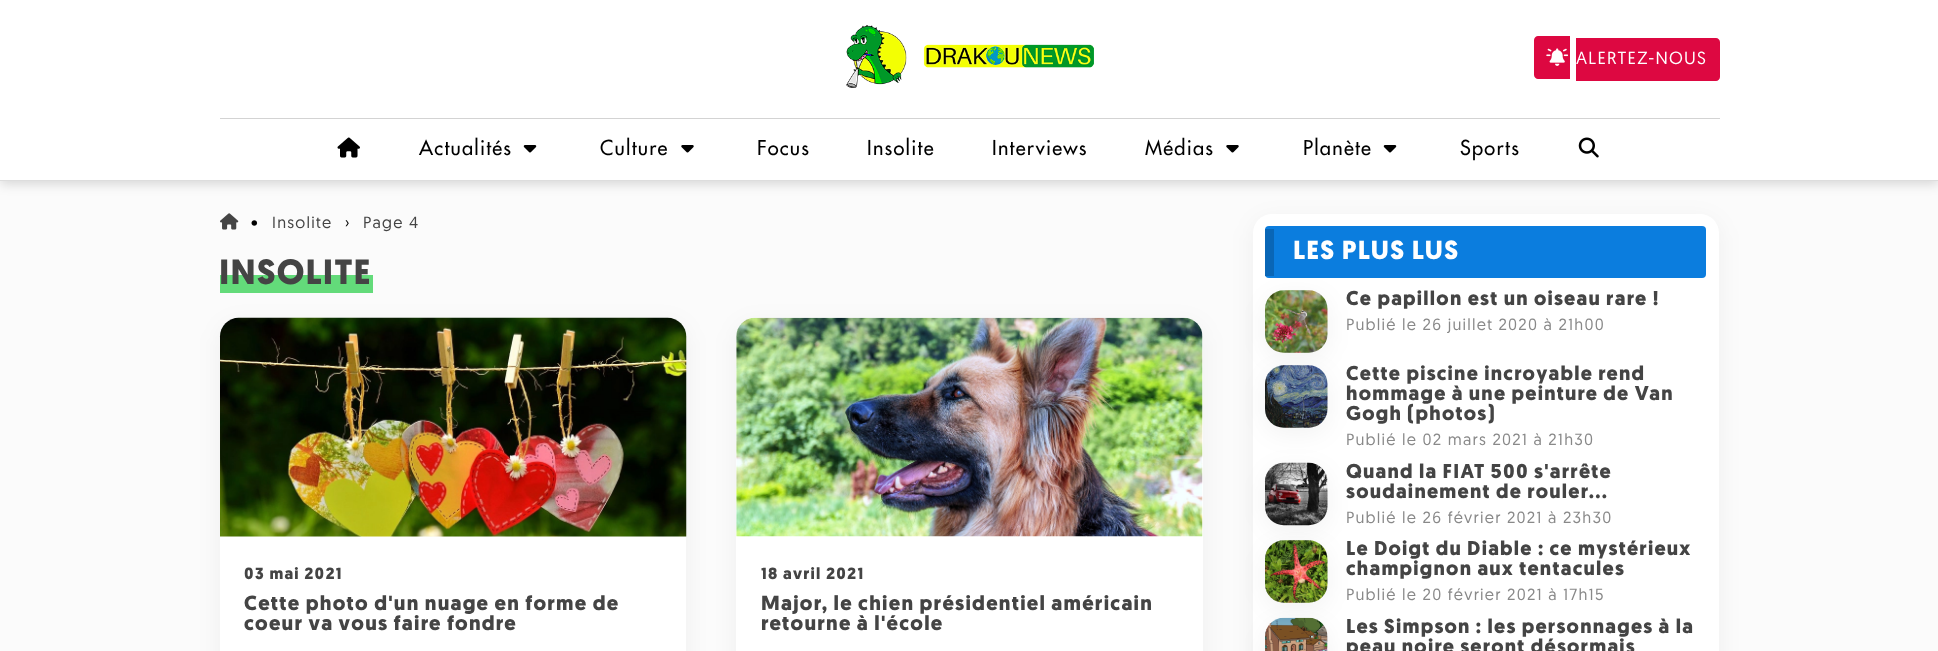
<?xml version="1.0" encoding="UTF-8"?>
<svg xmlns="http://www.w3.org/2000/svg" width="1938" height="651">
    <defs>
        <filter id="blur1" x="-50%" y="-200%" width="200%" height="500%"><feGaussianBlur stdDeviation="6"/></filter>
        <filter id="blur2" x="-50%" y="-200%" width="200%" height="500%"><feGaussianBlur stdDeviation="12.5"/></filter>
    </defs>
    <rect width="100%" height="100%" fill="#FBFBFB"/>
    <rect x="0" y="3" width="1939" height="181" fill="#000000" fill-opacity="0.15" filter="url(#blur1)"/>
    <rect x="0" y="0" width="1938" height="180" fill="#FFFFFF"/>
    <rect x="0" y="180" width="1938" height="1" fill="#DDDDDD"/>
    <image x="846" y="25" width="248" height="63" href="img_01.png"/>
    <path d="M 1538 36 H 1570 V 79 H 1538 C 1536 79 1534 77 1534 75 V 40 C 1534 38 1536 36 1538 36 Z" fill="#DD0841"/>
    <path d="M 1576 38 H 1716 C 1718 38 1720 40 1720 42 V 77 C 1720 79 1718 81 1716 81 H 1576 Z" fill="#DD0841"/>
    <image x="1546" y="48" width="23" height="18" href="img_02.png"/>
    <text x="1576" y="64" font-family="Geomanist" font-size="17.5" letter-spacing="1.25" fill="#FFFFFF">ALERTEZ-NOUS</text>
    <rect x="220" y="118" width="1500" height="1" fill="#D3D3D3"/>
    <image x="337" y="137" width="23" height="21" href="img_03.png"/>
    <text x="419" y="155" font-family="Futura" font-size="20" font-weight="500" letter-spacing="1.25" fill="#000000">Actualités</text>
    <image x="523" y="145" width="14" height="8" href="img_04.png"/>
    <text x="600" y="155" font-family="Futura" font-size="20" font-weight="500" letter-spacing="1.25" fill="#000000">Culture</text>
    <image x="681" y="145" width="13" height="8" href="img_05.png"/>
    <text x="757" y="155" font-family="Futura" font-size="20" font-weight="500" letter-spacing="1.25" fill="#000000">Focus</text>
    <text x="867" y="155" font-family="Futura" font-size="20" font-weight="500" letter-spacing="1.25" fill="#000000">Insolite</text>
    <text x="992" y="155" font-family="Futura" font-size="20" font-weight="500" letter-spacing="1.25" fill="#000000">Interviews</text>
    <text x="1145" y="155" font-family="Futura" font-size="20" font-weight="500" letter-spacing="1.25" fill="#000000">Médias</text>
    <image x="1226" y="145" width="13" height="8" href="img_05.png"/>
    <text x="1303" y="155" font-family="Futura" font-size="20" font-weight="500" letter-spacing="1.25" fill="#000000">Planète</text>
    <image x="1383" y="145" width="14" height="8" href="img_04.png"/>
    <text x="1460" y="155" font-family="Futura" font-size="20" font-weight="500" letter-spacing="1.25" fill="#000000">Sports</text>
    <image x="1578" y="137" width="21" height="21" href="img_06.png"/>
    <image x="220" y="213" width="19" height="17" href="img_07.png"/>
    <text x="251" y="228" font-family="Geomanist" font-size="16.25" letter-spacing="1.25" fill="#000000">•</text>
    <text x="272" y="228" font-family="Geomanist" font-size="16.25" letter-spacing="1.25" fill="#444444">Insolite</text>
    <text x="345" y="228" font-family="Geomanist" font-size="16.25" letter-spacing="1.25" fill="#000000">›</text>
    <text x="363" y="228" font-family="Geomanist" font-size="16.25" letter-spacing="1.25" fill="#444444">Page 4</text>
    <rect x="220" y="275" width="153" height="18" fill="#63DB7A"/>
    <text x="219" y="284" font-family="Geomanist" font-size="35" font-weight="700" letter-spacing="1.25" fill="#444444">INSOLITE</text>
    <rect x="220" y="324" width="466" height="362" rx="19" fill="#000000" fill-opacity="0.05" filter="url(#blur2)"/>
    <rect x="220" y="318" width="466" height="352" rx="19" fill="#FFFFFF"/>
    <image x="219" y="317" width="468" height="220" href="img_08.png"/>
    <text x="244" y="579" font-family="Geomanist" font-size="16.25" font-weight="700" letter-spacing="1.25" fill="#444444">03 mai 2021</text>
    <text font-family="Geomanist" font-size="20.5" font-weight="700" letter-spacing="1.25" fill="#444444">
        <tspan x="244" y="610">Cette photo d'un nuage en forme de</tspan>
        <tspan x="244" y="630">coeur va vous faire fondre</tspan>
    </text>
    <rect x="736" y="324" width="467" height="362" rx="19" fill="#000000" fill-opacity="0.05" filter="url(#blur2)"/>
    <rect x="736" y="318" width="467" height="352" rx="19" fill="#FFFFFF"/>
    <image x="736" y="317" width="467" height="220" href="img_09.png"/>
    <text x="761" y="579" font-family="Geomanist" font-size="16.25" font-weight="700" letter-spacing="1.25" fill="#444444">18 avril 2021</text>
    <text font-family="Geomanist" font-size="20.5" font-weight="700" letter-spacing="1.25" fill="#444444">
        <tspan x="761" y="610">Major, le chien présidentiel américain</tspan>
        <tspan x="761" y="630">retourne à l'école</tspan>
    </text>
    <rect x="1253" y="220" width="466" height="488" rx="19" fill="#000000" fill-opacity="0.05" filter="url(#blur2)"/>
    <rect x="1253" y="214" width="466" height="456" rx="19" fill="#FFFFFF"/>
    <rect x="1265" y="226" width="441" height="52" rx="4" fill="#0B7DDE"/>
    <rect x="1265" y="229" width="9" height="47" fill="#0966B6"/>
    <rect x="1265" y="296" width="63" height="63" rx="19" fill="#000000" fill-opacity="0.05" filter="url(#blur2)"/>
    <text x="1293" y="259" font-family="Geomanist" font-size="26.25" font-weight="700" letter-spacing="1.25" fill="#FFFFFF">LES PLUS LUS</text>
    <image x="1265" y="290" width="63" height="63" href="img_10.png"/>
    <text x="1346" y="305" font-family="Geomanist" font-size="20" font-weight="700" letter-spacing="1.25" fill="#444444">Ce papillon est un oiseau rare !</text>
    <text x="1346" y="330" font-family="Geomanist" font-size="16.25" letter-spacing="1.25" fill="#898989">Publié le 26 juillet 2020 à 21h00</text>
    <rect x="1265" y="371" width="63" height="63" rx="19" fill="#000000" fill-opacity="0.05" filter="url(#blur2)"/>
    <image x="1265" y="365" width="63" height="63" href="img_11.png"/>
    <text font-family="Geomanist" font-size="20" font-weight="700" letter-spacing="1.25" fill="#444444">
        <tspan x="1346" y="380">Cette piscine incroyable rend</tspan>
        <tspan x="1346" y="400">hommage à une peinture de Van</tspan>
        <tspan x="1346" y="420">Gogh (photos)</tspan>
    </text>
    <text x="1346" y="445" font-family="Geomanist" font-size="16.25" letter-spacing="1.25" fill="#898989">Publié le 02 mars 2021 à 21h30</text>
    <rect x="1265" y="469" width="63" height="62" rx="19" fill="#000000" fill-opacity="0.05" filter="url(#blur2)"/>
    <image x="1264" y="462" width="64" height="64" href="img_12.png"/>
    <text font-family="Geomanist" font-size="20" font-weight="700" letter-spacing="1.25" fill="#444444">
        <tspan x="1346" y="478">Quand la FIAT 500 s'arrête</tspan>
        <tspan x="1346" y="498">soudainement de rouler...</tspan>
    </text>
    <text x="1346" y="523" font-family="Geomanist" font-size="16.25" letter-spacing="1.25" fill="#898989">Publié le 26 février 2021 à 23h30</text>
    <rect x="1265" y="546" width="63" height="63" rx="19" fill="#000000" fill-opacity="0.05" filter="url(#blur2)"/>
    <image x="1265" y="540" width="63" height="63" href="img_13.png"/>
    <text font-family="Geomanist" font-size="20" font-weight="700" letter-spacing="1.25" fill="#444444">
        <tspan x="1346" y="555">Le Doigt du Diable : ce mystérieux</tspan>
        <tspan x="1346" y="575">champignon aux tentacules</tspan>
    </text>
    <text x="1346" y="600" font-family="Geomanist" font-size="16.25" letter-spacing="1.25" fill="#898989">Publié le 20 février 2021 à 17h15</text>
    <rect x="1265" y="624" width="63" height="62" rx="19" fill="#000000" fill-opacity="0.05" filter="url(#blur2)"/>
    <image x="1265" y="617" width="63" height="34" href="img_14.png"/>
    <text font-family="Geomanist" font-size="20" font-weight="700" letter-spacing="1.25" fill="#444444">
        <tspan x="1346" y="633">Les Simpson : les personnages à la</tspan>
        <tspan x="1346" y="653">peau noire seront désormais</tspan>
    </text>
</svg>
